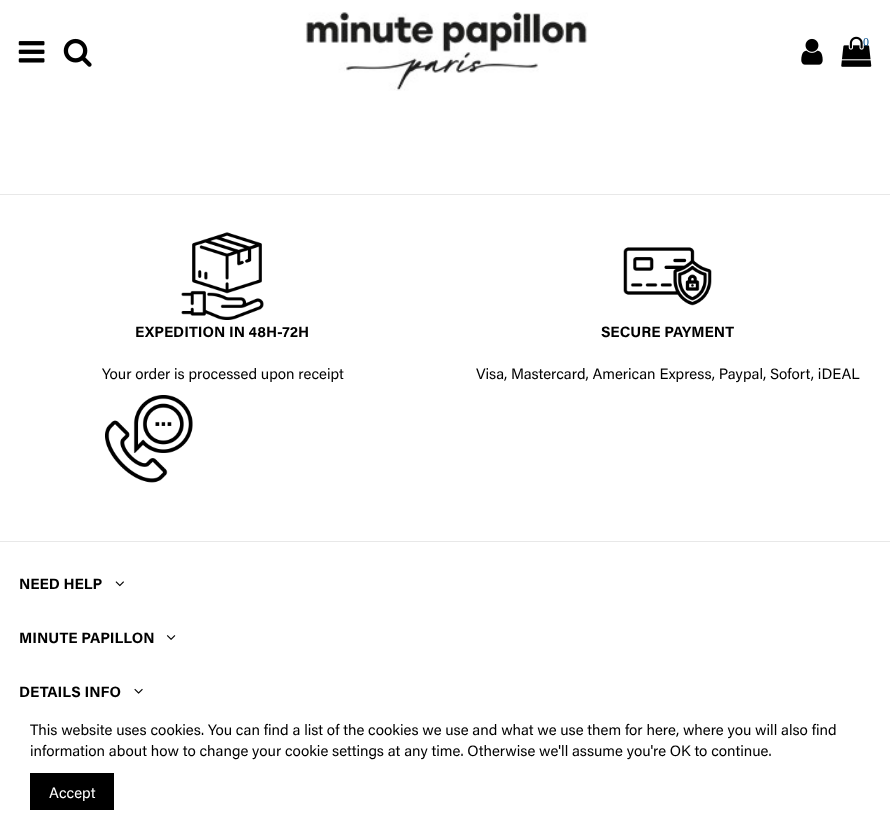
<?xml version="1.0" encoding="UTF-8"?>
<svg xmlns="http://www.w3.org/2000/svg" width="890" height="839">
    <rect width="100%" height="100%" fill="#FFFFFF"/>
    <image x="18" y="41" width="27" height="22" href="img_01.png"/>
    <image x="63" y="38" width="29" height="29" href="img_02.png"/>
    <image x="305" y="12" width="283" height="79" href="img_03.png"/>
    <image x="801" y="38" width="22" height="27" href="img_04.png"/>
    <image x="841" y="36" width="31" height="31" href="img_05.png"/>
    <text x="863" y="46" font-family="Liberation Serif" font-size="12" fill="#004D8C">0</text>
    <rect x="0" y="194" width="890" height="1" fill="#E8E8E8"/>
    <rect x="0" y="541" width="890" height="1" fill="#E8E8E8"/>
    <image x="181" y="232" width="83" height="88" href="img_06.png"/>
    <text x="135" y="337" font-family="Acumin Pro" font-size="15" font-weight="700" fill="#000000">EXPEDITION IN 48H-72H</text>
    <text x="102" y="379" font-family="Acumin Pro" font-size="15" fill="#000000">Your order is processed upon receipt</text>
    <image x="623" y="247" width="89" height="59" href="img_07.png"/>
    <text x="601" y="337" font-family="Acumin Pro" font-size="15" font-weight="700" fill="#000000">SECURE PAYMENT</text>
    <text x="476" y="379" font-family="Acumin Pro" font-size="15" fill="#000000">Visa, Mastercard, American Express, Paypal, Sofort, iDEAL</text>
    <image x="105" y="395" width="88" height="88" href="img_08.png"/>
    <text x="19" y="589" font-family="Acumin Pro" font-size="15" font-weight="700" fill="#000000">NEED HELP</text>
    <image x="115" y="581" width="9" height="6" href="img_09.png"/>
    <text x="19" y="643" font-family="Acumin Pro" font-size="15" font-weight="700" fill="#000000">MINUTE PAPILLON</text>
    <image x="166" y="635" width="10" height="5" href="img_10.png"/>
    <text x="19" y="697" font-family="Acumin Pro" font-size="15" font-weight="700" fill="#000000">DETAILS INFO</text>
    <image x="134" y="688" width="9" height="6" href="img_11.png"/>
    <text font-family="Acumin Pro" font-size="15" fill="#000000">
        <tspan x="30" y="735">This website uses cookies. You can find a list of the cookies we use and what we use them for here, where you will also find</tspan>
        <tspan x="30" y="756">information about how to change your cookie settings at any time. Otherwise we'll assume you're OK to continue.</tspan>
    </text>
    <rect x="30" y="773" width="84" height="37" fill="#000000"/>
    <text x="49" y="798" font-family="Acumin Pro" font-size="15" fill="#FFFFFF">Accept</text>
</svg>
